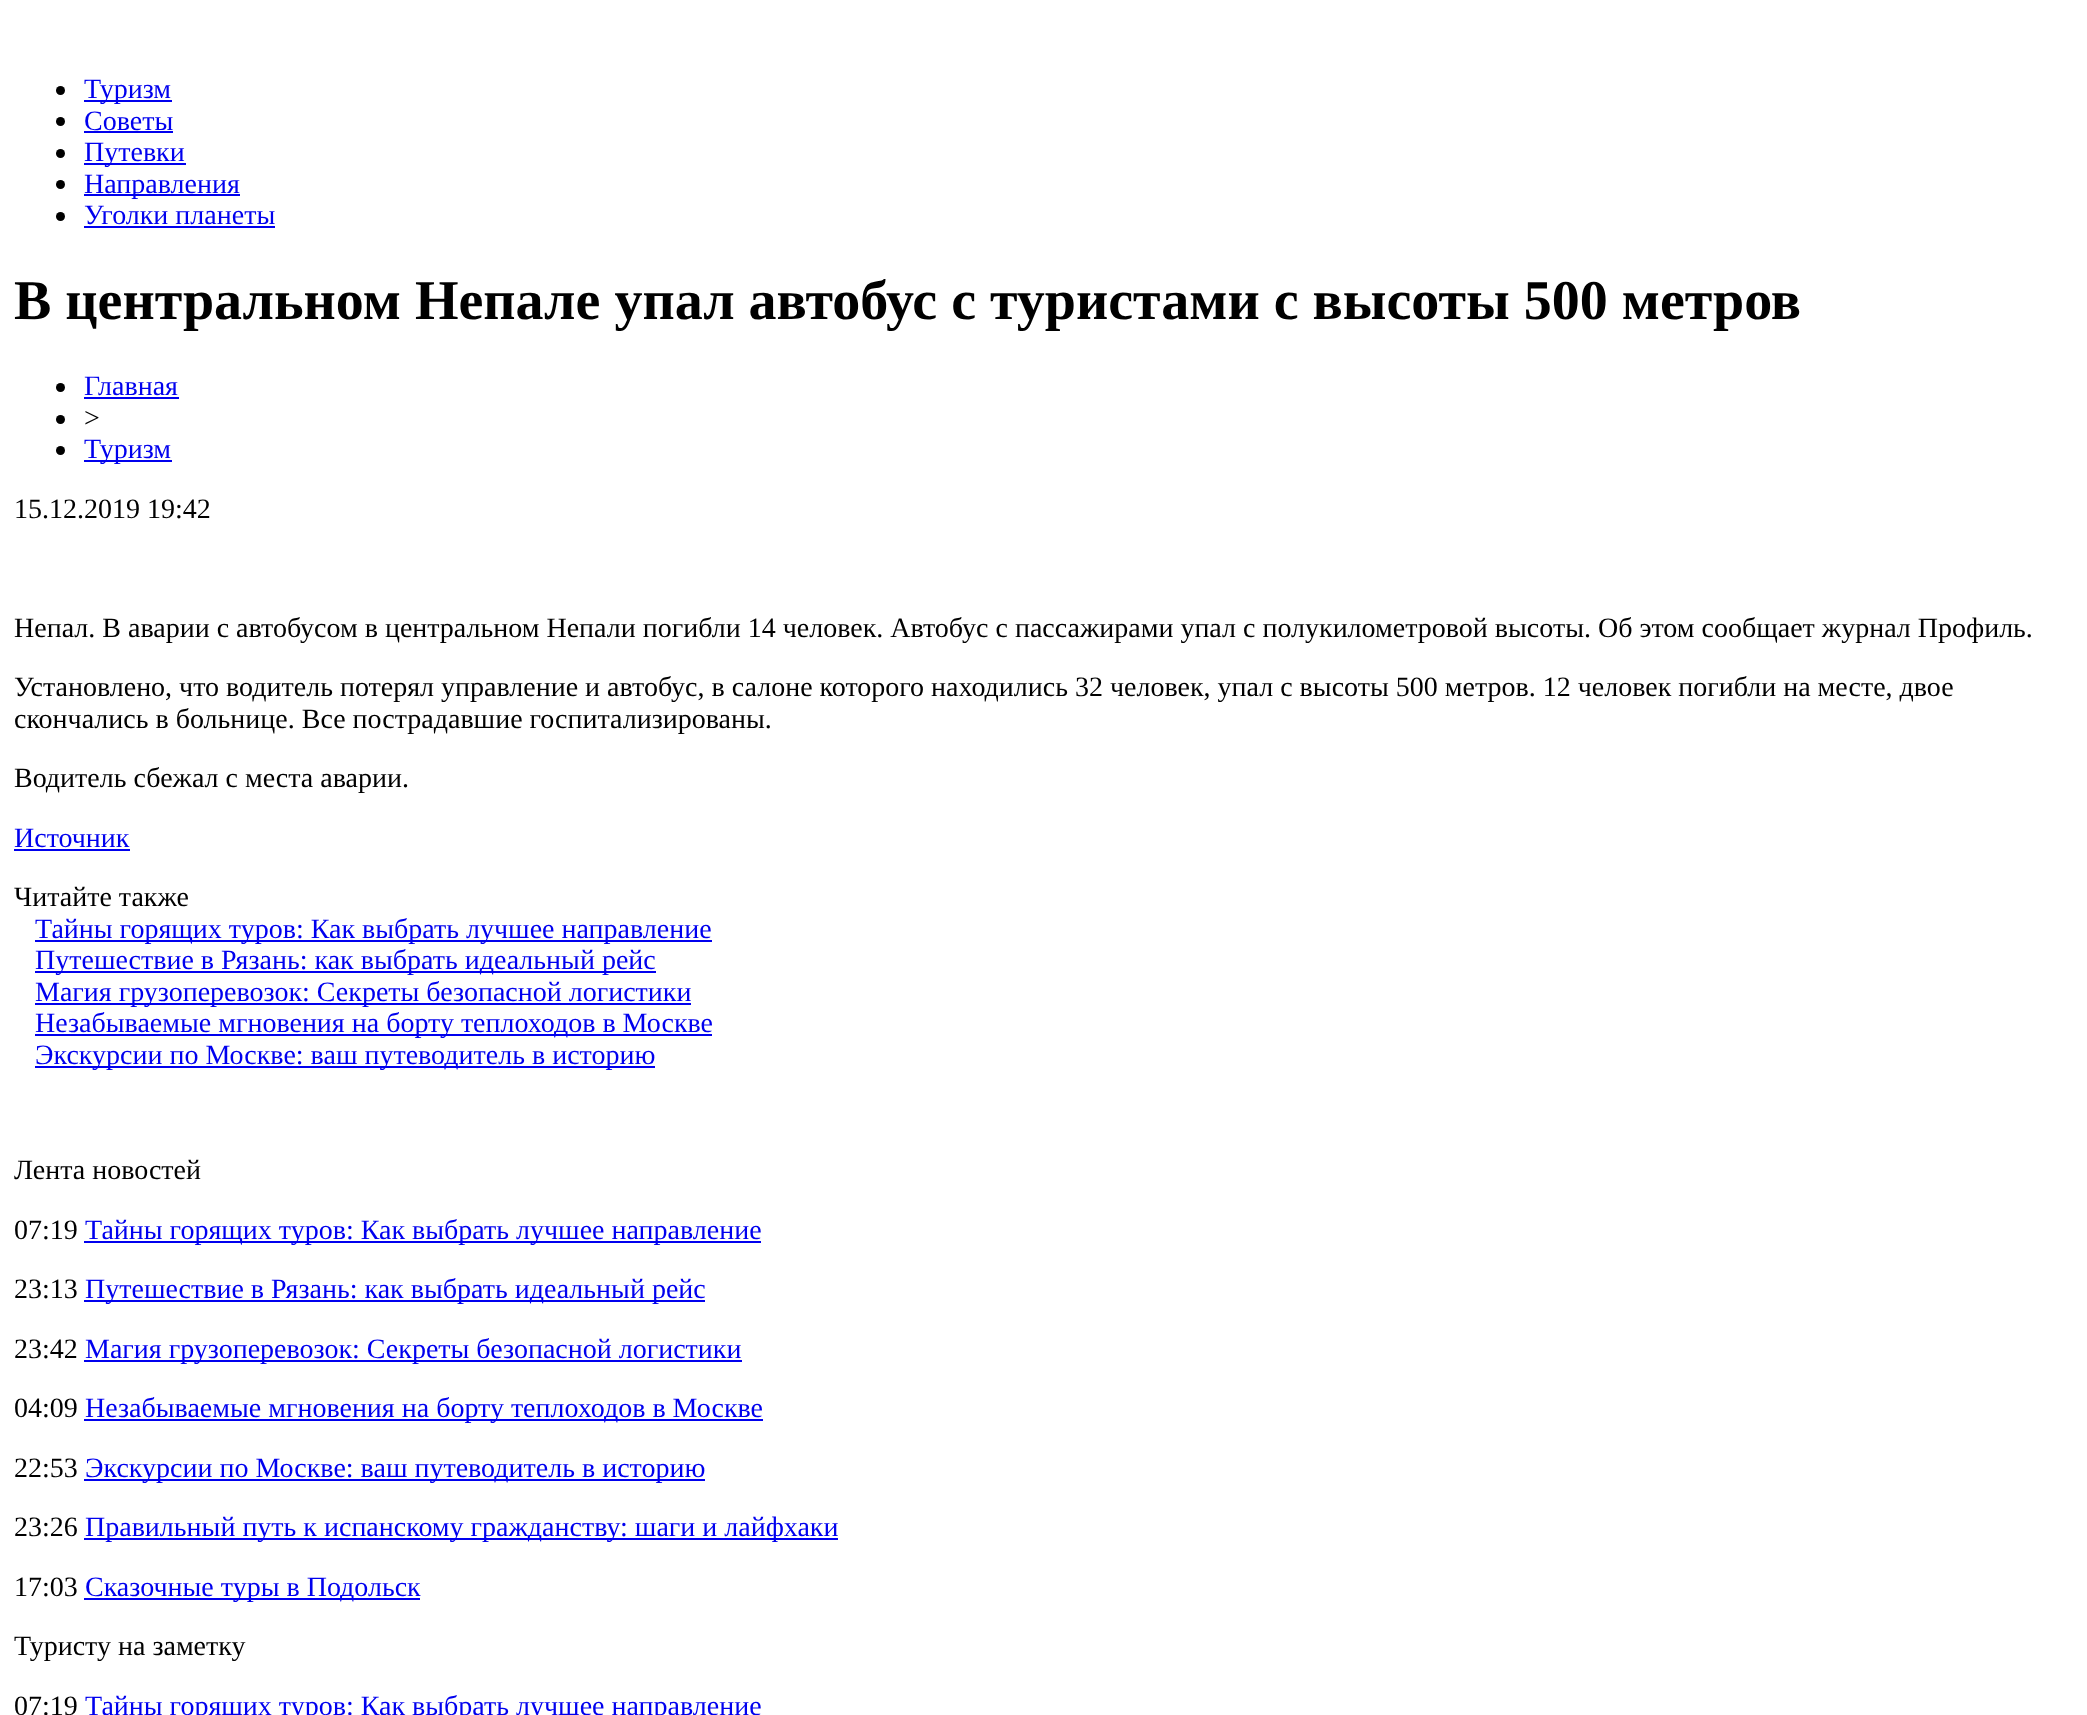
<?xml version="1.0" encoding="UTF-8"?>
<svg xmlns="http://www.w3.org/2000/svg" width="2087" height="1715">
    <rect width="100%" height="100%" fill="#FFFFFF"/>
    <circle cx="60.5" cy="90.5" r="4.5" fill="#000000"/>
    <rect x="84" y="100" width="88" height="2" fill="#0000EE"/>
    <text x="84" y="98" font-family="Liberation Serif" font-size="28" fill="#0000EE">Туризм</text>
    <circle cx="60.5" cy="121.5" r="4.5" fill="#000000"/>
    <text x="84" y="130" font-family="Liberation Serif" font-size="28" fill="#0000EE">Советы</text>
    <rect x="84" y="131" width="89" height="2" fill="#0000EE"/>
    <circle cx="60.5" cy="153.5" r="4.5" fill="#000000"/>
    <rect x="84" y="163" width="102" height="2" fill="#0000EE"/>
    <text x="84" y="161" font-family="Liberation Serif" font-size="28" fill="#0000EE">Путевки</text>
    <circle cx="60.5" cy="184.5" r="4.5" fill="#000000"/>
    <rect x="84" y="194" width="156" height="2" fill="#0000EE"/>
    <text x="84" y="193" font-family="Liberation Serif" font-size="28" fill="#0000EE">Направления</text>
    <circle cx="60.5" cy="216.5" r="4.5" fill="#000000"/>
    <text x="84" y="224" font-family="Liberation Serif" font-size="28" fill="#0000EE">Уголки планеты</text>
    <rect x="84" y="226" width="191" height="2" fill="#0000EE"/>
    <text x="14" y="319" font-family="Liberation Serif" font-size="56" font-weight="700" fill="#000000">В центральном Непале упал автобус с туристами с высоты 500 метров</text>
    <circle cx="60.5" cy="387.5" r="4.5" fill="#000000"/>
    <text x="84" y="395" font-family="Liberation Serif" font-size="28" fill="#0000EE">Главная</text>
    <rect x="84" y="397" width="95" height="2" fill="#0000EE"/>
    <circle cx="60.5" cy="419.5" r="4.5" fill="#000000"/>
    <text x="84" y="427" font-family="Liberation Serif" font-size="28" fill="#000000">&gt;</text>
    <circle cx="60.5" cy="450.5" r="4.5" fill="#000000"/>
    <rect x="84" y="460" width="88" height="2" fill="#0000EE"/>
    <text x="84" y="458" font-family="Liberation Serif" font-size="28" fill="#0000EE">Туризм</text>
    <text x="14" y="518" font-family="Liberation Serif" font-size="28" fill="#000000">15.12.2019 19:42</text>
    <text x="14" y="637" font-family="Liberation Serif" font-size="28" fill="#000000">Непал. В аварии с автобусом в центральном Непали погибли 14 человек. Автобус с пассажирами упал с полукилометровой высоты. Об этом сообщает журнал Профиль.</text>
    <text font-family="Liberation Serif" font-size="28" fill="#000000">
        <tspan x="14" y="696">Установлено, что водитель потерял управление и автобус, в салоне которого находились 32 человек, упал с высоты 500 метров. 12 человек погибли на месте, двое</tspan>
        <tspan x="14" y="728">скончались в больнице. Все пострадавшие госпитализированы.</tspan>
    </text>
    <text x="14" y="787" font-family="Liberation Serif" font-size="28" fill="#000000">Водитель сбежал с места аварии.</text>
    <text x="14" y="847" font-family="Liberation Serif" font-size="28" fill="#0000EE">Источник</text>
    <rect x="14" y="849" width="116" height="2" fill="#0000EE"/>
    <text x="14" y="906" font-family="Liberation Serif" font-size="28" fill="#000000">Читайте также</text>
    <rect x="35" y="940" width="677" height="2" fill="#0000EE"/>
    <text x="35" y="938" font-family="Liberation Serif" font-size="28" fill="#0000EE">Тайны горящих туров: Как выбрать лучшее направление</text>
    <rect x="35" y="971" width="621" height="2" fill="#0000EE"/>
    <text x="35" y="969" font-family="Liberation Serif" font-size="28" fill="#0000EE">Путешествие в Рязань: как выбрать идеальный рейс</text>
    <rect x="35" y="1003" width="656" height="2" fill="#0000EE"/>
    <text x="35" y="1001" font-family="Liberation Serif" font-size="28" fill="#0000EE">Магия грузоперевозок: Секреты безопасной логистики</text>
    <rect x="35" y="1034" width="677" height="2" fill="#0000EE"/>
    <text x="35" y="1032" font-family="Liberation Serif" font-size="28" fill="#0000EE">Незабываемые мгновения на борту теплоходов в Москве</text>
    <rect x="35" y="1066" width="620" height="2" fill="#0000EE"/>
    <text x="35" y="1064" font-family="Liberation Serif" font-size="28" fill="#0000EE">Экскурсии по Москве: ваш путеводитель в историю</text>
    <text x="14" y="1179" font-family="Liberation Serif" font-size="28" fill="#000000">Лента новостей</text>
    <text x="14" y="1239" font-family="Liberation Serif" font-size="28" fill="#000000">07:19</text>
    <rect x="84" y="1241" width="677" height="2" fill="#0000EE"/>
    <text x="85" y="1239" font-family="Liberation Serif" font-size="28" fill="#0000EE">Тайны горящих туров: Как выбрать лучшее направление</text>
    <text x="14" y="1298" font-family="Liberation Serif" font-size="28" fill="#000000">23:13</text>
    <rect x="84" y="1300" width="621" height="2" fill="#0000EE"/>
    <text x="85" y="1298" font-family="Liberation Serif" font-size="28" fill="#0000EE">Путешествие в Рязань: как выбрать идеальный рейс</text>
    <text x="14" y="1358" font-family="Liberation Serif" font-size="28" fill="#000000">23:42</text>
    <rect x="84" y="1360" width="658" height="2" fill="#0000EE"/>
    <text x="85" y="1358" font-family="Liberation Serif" font-size="28" fill="#0000EE">Магия грузоперевозок: Секреты безопасной логистики</text>
    <text x="14" y="1417" font-family="Liberation Serif" font-size="28" fill="#000000">04:09</text>
    <rect x="84" y="1419" width="679" height="2" fill="#0000EE"/>
    <text x="85" y="1417" font-family="Liberation Serif" font-size="28" fill="#0000EE">Незабываемые мгновения на борту теплоходов в Москве</text>
    <text x="14" y="1477" font-family="Liberation Serif" font-size="28" fill="#000000">22:53</text>
    <rect x="84" y="1479" width="621" height="2" fill="#0000EE"/>
    <text x="85" y="1477" font-family="Liberation Serif" font-size="28" fill="#0000EE">Экскурсии по Москве: ваш путеводитель в историю</text>
    <text x="14" y="1536" font-family="Liberation Serif" font-size="28" fill="#000000">23:26</text>
    <rect x="84" y="1538" width="754" height="2" fill="#0000EE"/>
    <text x="85" y="1536" font-family="Liberation Serif" font-size="28" fill="#0000EE">Правильный путь к испанскому гражданству: шаги и лайфхаки</text>
    <text x="14" y="1596" font-family="Liberation Serif" font-size="28" fill="#000000">17:03</text>
    <rect x="84" y="1598" width="336" height="2" fill="#0000EE"/>
    <text x="85" y="1596" font-family="Liberation Serif" font-size="28" fill="#0000EE">Сказочные туры в Подольск</text>
    <text x="14" y="1655" font-family="Liberation Serif" font-size="28" fill="#000000">Туристу на заметку</text>
    <text x="14" y="1715" font-family="Liberation Serif" font-size="28" fill="#000000">07:19</text>
    <text x="85" y="1715" font-family="Liberation Serif" font-size="28" fill="#0000EE">Тайны горящих туров: Как выбрать лучшее направление</text>
</svg>
